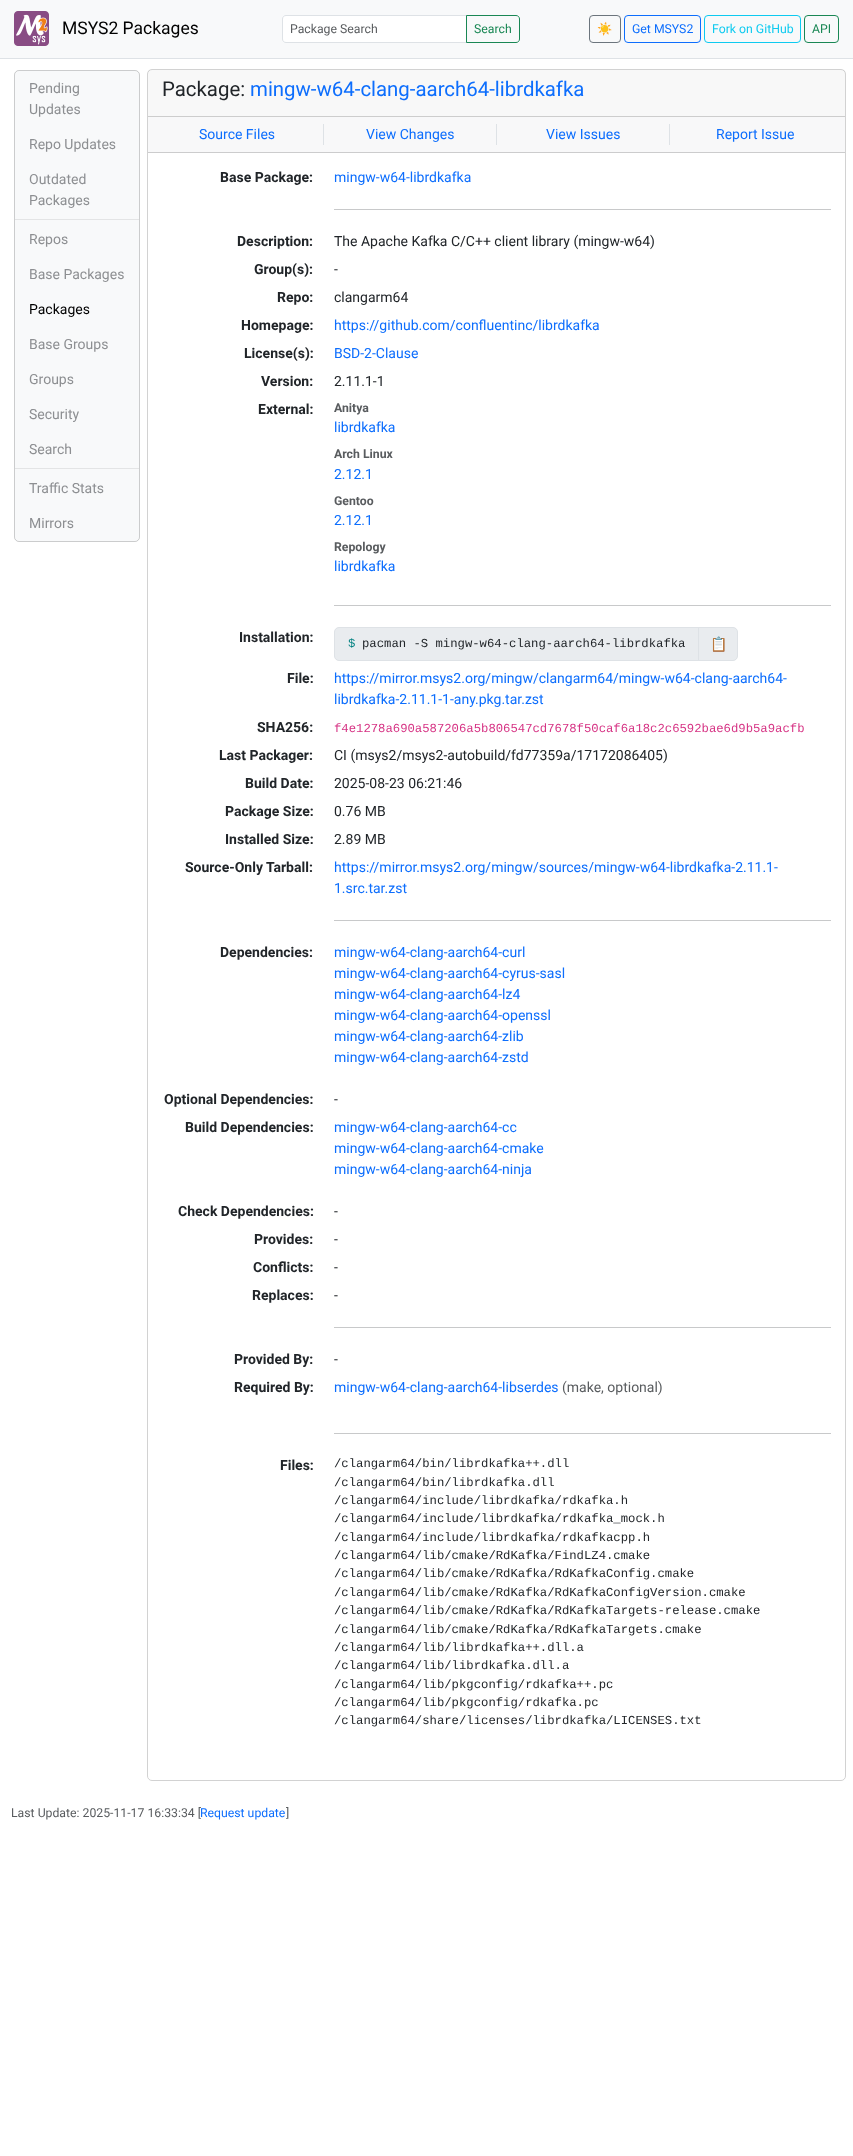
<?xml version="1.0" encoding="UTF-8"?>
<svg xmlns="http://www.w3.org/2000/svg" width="853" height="2156">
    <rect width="100%" height="100%" fill="#FFFFFF"/>
    <rect x="0" y="0" width="853" height="58" fill="#F8F9FA"/>
    <rect x="0" y="58" width="853" height="1" fill="#DEE2E6"/>
    <image x="14" y="11" width="35" height="35" href="img_01.png"/>
    <text x="62" y="34" font-family="Roboto" font-size="17.5" fill="#000000">MSYS2 Packages</text>
    <path d="M 285.5 16 H 466 V 42 H 285.5 C 284 42 283 41 283 39.5 V 18.5 C 283 17 284 16 285.5 16 Z" fill="#FFFFFF"/>
    <path d="M 286 15.5 H 466.5 V 42.5 H 286 C 284 42.5 282.5 41 282.5 39 V 19 C 282.5 17 284 15.5 286 15.5 Z" fill="none" stroke="#DEE2E6"/>
    <text x="290" y="33" font-family="Roboto" font-size="12.25" fill="#595C5F">Package Search</text>
    <path d="M 466.5 15.5 H 516 C 518 15.5 519.5 17 519.5 19 V 39 C 519.5 41 518 42.5 516 42.5 H 466.5 Z" fill="none" stroke="#198754"/>
    <text x="474" y="33" font-family="Roboto" font-size="12.25" fill="#198754">Search</text>
    <rect x="589.5" y="15.5" width="31" height="27" rx="3.5" fill="none" stroke="#6C757D"/>
    <text x="597" y="33" font-family="Noto Color Emoji" font-size="12.25" fill="#6C757D">☀️</text>
    <rect x="624.5" y="15.5" width="76" height="27" rx="3.5" fill="none" stroke="#0D6EFD"/>
    <text x="632" y="33" font-family="Roboto" font-size="12.25" fill="#0D6EFD">Get MSYS2</text>
    <rect x="704.5" y="15.5" width="96" height="27" rx="3.5" fill="none" stroke="#0DCAF0"/>
    <text x="712" y="33" font-family="Roboto" font-size="12.25" fill="#0DCAF0">Fork on GitHub</text>
    <rect x="804.5" y="15.5" width="34" height="27" rx="3.5" fill="none" stroke="#198754"/>
    <text x="812" y="33" font-family="Roboto" font-size="12.25" fill="#198754">API</text>
    <rect x="14" y="70" width="126" height="472" rx="5" fill="#F8F9FA"/>
    <rect x="14.5" y="70.5" width="125" height="471" rx="4.5" fill="none" stroke="#000000" stroke-opacity="0.18"/>
    <text font-family="Roboto" font-size="14" fill="#8D8F92">
        <tspan x="29" y="93">Pending</tspan>
        <tspan x="29" y="114">Updates</tspan>
    </text>
    <text x="29" y="149" font-family="Roboto" font-size="14" fill="#8D8F92">Repo Updates</text>
    <text font-family="Roboto" font-size="14" fill="#8D8F92">
        <tspan x="29" y="184">Outdated</tspan>
        <tspan x="29" y="205">Packages</tspan>
    </text>
    <rect x="15" y="219" width="124" height="1" fill="#E3E4E5"/>
    <text x="29" y="244" font-family="Roboto" font-size="14" fill="#8D8F92">Repos</text>
    <text x="29" y="279" font-family="Roboto" font-size="14" fill="#8D8F92">Base Packages</text>
    <text x="29" y="314" font-family="Roboto" font-size="14" fill="#000000">Packages</text>
    <text x="29" y="349" font-family="Roboto" font-size="14" fill="#8D8F92">Base Groups</text>
    <text x="29" y="384" font-family="Roboto" font-size="14" fill="#8D8F92">Groups</text>
    <text x="29" y="419" font-family="Roboto" font-size="14" fill="#8D8F92">Security</text>
    <text x="29" y="454" font-family="Roboto" font-size="14" fill="#8D8F92">Search</text>
    <rect x="15" y="468" width="124" height="1" fill="#E3E4E5"/>
    <text x="29" y="493" font-family="Roboto" font-size="14" fill="#8D8F92">Traffic Stats</text>
    <text x="29" y="528" font-family="Roboto" font-size="14" fill="#8D8F92">Mirrors</text>
    <rect x="147.5" y="69.5" width="698" height="1711" rx="4.5" fill="none" stroke="#D2D2D2"/>
    <rect x="148" y="70" width="697" height="46" fill="#212529" fill-opacity="0.03"/>
    <rect x="148" y="116" width="697" height="1" fill="#CDCDCD"/>
    <text x="162" y="96" font-family="Roboto" font-size="20.4" fill="#212529">Package:</text>
    <text x="250" y="96" font-family="Roboto" font-size="20.4" fill="#0D6EFD">mingw-w64-clang-aarch64-librdkafka</text>
    <rect x="148" y="117" width="697" height="35" fill="#F8F8F9"/>
    <rect x="148" y="152" width="697" height="1" fill="#CCCCCD"/>
    <rect x="323" y="124" width="1" height="21" fill="#DEE2E6"/>
    <text x="199" y="139" font-family="Roboto" font-size="14" fill="#0D6EFD">Source Files</text>
    <rect x="496" y="124" width="1" height="21" fill="#DEE2E6"/>
    <text x="366" y="139" font-family="Roboto" font-size="14" fill="#0D6EFD">View Changes</text>
    <rect x="669" y="124" width="1" height="21" fill="#DEE2E6"/>
    <text x="546" y="139" font-family="Roboto" font-size="14" fill="#0D6EFD">View Issues</text>
    <text x="716" y="139" font-family="Roboto" font-size="14" fill="#0D6EFD">Report Issue</text>
    <text x="220" y="182" font-family="Roboto" font-size="14" font-weight="700" fill="#212529">Base Package:</text>
    <text x="334" y="182" font-family="Roboto" font-size="14" fill="#0D6EFD">mingw-w64-librdkafka</text>
    <rect x="334" y="209" width="497" height="1" fill="#C8C9CA"/>
    <text x="237" y="246" font-family="Roboto" font-size="14" font-weight="700" fill="#212529">Description:</text>
    <text x="334" y="246" font-family="Roboto" font-size="14" fill="#212529">The Apache Kafka C/C++ client library (mingw-w64)</text>
    <text x="254" y="274" font-family="Roboto" font-size="14" font-weight="700" fill="#212529">Group(s):</text>
    <text x="334" y="274" font-family="Roboto" font-size="14" fill="#212529">-</text>
    <text x="277" y="302" font-family="Roboto" font-size="14" font-weight="700" fill="#212529">Repo:</text>
    <text x="334" y="302" font-family="Roboto" font-size="14" fill="#212529">clangarm64</text>
    <text x="241" y="330" font-family="Roboto" font-size="14" font-weight="700" fill="#212529">Homepage:</text>
    <text x="334" y="330" font-family="Roboto" font-size="14" fill="#0D6EFD">https://github.com/confluentinc/librdkafka</text>
    <text x="244" y="358" font-family="Roboto" font-size="14" font-weight="700" fill="#212529">License(s):</text>
    <text x="334" y="358" font-family="Roboto" font-size="14" fill="#0D6EFD">BSD-2-Clause</text>
    <text x="261" y="386" font-family="Roboto" font-size="14" font-weight="700" fill="#212529">Version:</text>
    <text x="334" y="386" font-family="Roboto" font-size="14" fill="#212529">2.11.1-1</text>
    <text x="258" y="414" font-family="Roboto" font-size="14" font-weight="700" fill="#212529">External:</text>
    <text x="334" y="412" font-family="Roboto" font-size="12.25" font-weight="700" fill="#595C5F">Anitya</text>
    <text x="334" y="432" font-family="Roboto" font-size="14" fill="#0D6EFD">librdkafka</text>
    <text x="334" y="458" font-family="Roboto" font-size="12.25" font-weight="700" fill="#595C5F">Arch Linux</text>
    <text x="334" y="479" font-family="Roboto" font-size="14" fill="#0D6EFD">2.12.1</text>
    <text x="334" y="505" font-family="Roboto" font-size="12.25" font-weight="700" fill="#595C5F">Gentoo</text>
    <text x="334" y="525" font-family="Roboto" font-size="14" fill="#0D6EFD">2.12.1</text>
    <text x="334" y="551" font-family="Roboto" font-size="12.25" font-weight="700" fill="#595C5F">Repology</text>
    <text x="334" y="571" font-family="Roboto" font-size="14" fill="#0D6EFD">librdkafka</text>
    <rect x="334" y="605" width="497" height="1" fill="#C8C9CA"/>
    <text x="239" y="642" font-family="Roboto" font-size="14" font-weight="700" fill="#212529">Installation:</text>
    <rect x="334.5" y="627.5" width="403" height="33" rx="4.5" fill="#E9ECEF" stroke="#DEE2E6"/>
    <text x="348" y="647" font-family="Liberation Mono" font-size="12.25" fill="#008080">$</text>
    <text x="362" y="647" font-family="Liberation Mono" font-size="12.25" fill="#212529">pacman -S mingw-w64-clang-aarch64-librdkafka</text>
    <rect x="698" y="628" width="1" height="32" fill="#DEE2E6"/>
    <text x="710" y="649" font-family="Noto Color Emoji" font-size="14" fill="#212529">📋</text>
    <text x="287" y="683" font-family="Roboto" font-size="14" font-weight="700" fill="#212529">File:</text>
    <text font-family="Roboto" font-size="14" fill="#0D6EFD">
        <tspan x="334" y="683">https://mirror.msys2.org/mingw/clangarm64/mingw-w64-clang-aarch64-</tspan>
        <tspan x="334" y="704">librdkafka-2.11.1-1-any.pkg.tar.zst</tspan>
    </text>
    <text x="257" y="732" font-family="Roboto" font-size="14" font-weight="700" fill="#212529">SHA256:</text>
    <text x="334" y="732" font-family="Liberation Mono" font-size="12.25" fill="#D63384">f4e1278a690a587206a5b806547cd7678f50caf6a18c2c6592bae6d9b5a9acfb</text>
    <text x="219" y="760" font-family="Roboto" font-size="14" font-weight="700" fill="#212529">Last Packager:</text>
    <text x="334" y="760" font-family="Roboto" font-size="14" fill="#212529">CI (msys2/msys2-autobuild/fd77359a/17172086405)</text>
    <text x="245" y="788" font-family="Roboto" font-size="14" font-weight="700" fill="#212529">Build Date:</text>
    <text x="334" y="788" font-family="Roboto" font-size="14" fill="#212529">2025-08-23 06:21:46</text>
    <text x="225" y="816" font-family="Roboto" font-size="14" font-weight="700" fill="#212529">Package Size:</text>
    <text x="334" y="816" font-family="Roboto" font-size="14" fill="#212529">0.76 MB</text>
    <text x="225" y="844" font-family="Roboto" font-size="14" font-weight="700" fill="#212529">Installed Size:</text>
    <text x="334" y="844" font-family="Roboto" font-size="14" fill="#212529">2.89 MB</text>
    <text x="185" y="872" font-family="Roboto" font-size="14" font-weight="700" fill="#212529">Source-Only Tarball:</text>
    <text font-family="Roboto" font-size="14" fill="#0D6EFD">
        <tspan x="334" y="872">https://mirror.msys2.org/mingw/sources/mingw-w64-librdkafka-2.11.1-</tspan>
        <tspan x="334" y="893">1.src.tar.zst</tspan>
    </text>
    <rect x="334" y="920" width="497" height="1" fill="#C8C9CA"/>
    <text x="220" y="957" font-family="Roboto" font-size="14" font-weight="700" fill="#212529">Dependencies:</text>
    <text font-family="Roboto" font-size="14" fill="#0D6EFD">
        <tspan x="334" y="957">mingw-w64-clang-aarch64-curl</tspan>
        <tspan x="334" y="978">mingw-w64-clang-aarch64-cyrus-sasl</tspan>
        <tspan x="334" y="999">mingw-w64-clang-aarch64-lz4</tspan>
        <tspan x="334" y="1020">mingw-w64-clang-aarch64-openssl</tspan>
        <tspan x="334" y="1041">mingw-w64-clang-aarch64-zlib</tspan>
        <tspan x="334" y="1062">mingw-w64-clang-aarch64-zstd</tspan>
    </text>
    <text x="164" y="1104" font-family="Roboto" font-size="14" font-weight="700" fill="#212529">Optional Dependencies:</text>
    <text x="334" y="1104" font-family="Roboto" font-size="14" fill="#212529">-</text>
    <text x="185" y="1132" font-family="Roboto" font-size="14" font-weight="700" fill="#212529">Build Dependencies:</text>
    <text font-family="Roboto" font-size="14" fill="#0D6EFD">
        <tspan x="334" y="1132">mingw-w64-clang-aarch64-cc</tspan>
        <tspan x="334" y="1153">mingw-w64-clang-aarch64-cmake</tspan>
        <tspan x="334" y="1174">mingw-w64-clang-aarch64-ninja</tspan>
    </text>
    <text x="178" y="1216" font-family="Roboto" font-size="14" font-weight="700" fill="#212529">Check Dependencies:</text>
    <text x="334" y="1216" font-family="Roboto" font-size="14" fill="#212529">-</text>
    <text x="254" y="1244" font-family="Roboto" font-size="14" font-weight="700" fill="#212529">Provides:</text>
    <text x="334" y="1244" font-family="Roboto" font-size="14" fill="#212529">-</text>
    <text x="253" y="1272" font-family="Roboto" font-size="14" font-weight="700" fill="#212529">Conflicts:</text>
    <text x="334" y="1272" font-family="Roboto" font-size="14" fill="#212529">-</text>
    <text x="252" y="1300" font-family="Roboto" font-size="14" font-weight="700" fill="#212529">Replaces:</text>
    <text x="334" y="1300" font-family="Roboto" font-size="14" fill="#212529">-</text>
    <rect x="334" y="1327" width="497" height="1" fill="#C8C9CA"/>
    <text x="234" y="1364" font-family="Roboto" font-size="14" font-weight="700" fill="#212529">Provided By:</text>
    <text x="334" y="1364" font-family="Roboto" font-size="14" fill="#212529">-</text>
    <text x="234" y="1392" font-family="Roboto" font-size="14" font-weight="700" fill="#212529">Required By:</text>
    <text x="334" y="1392" font-family="Roboto" font-size="14" fill="#0D6EFD">mingw-w64-clang-aarch64-libserdes</text>
    <text x="562" y="1392" font-family="Roboto" font-size="14" fill="#595C5F">(make, optional)</text>
    <rect x="334" y="1433" width="497" height="1" fill="#C8C9CA"/>
    <text x="280" y="1470" font-family="Roboto" font-size="14" font-weight="700" fill="#212529">Files:</text>
    <text font-family="Liberation Mono" font-size="12.25" fill="#212529">
        <tspan x="334" y="1467">/clangarm64/bin/librdkafka++.dll</tspan>
        <tspan x="334" y="1486">/clangarm64/bin/librdkafka.dll</tspan>
        <tspan x="334" y="1504">/clangarm64/include/librdkafka/rdkafka.h</tspan>
        <tspan x="334" y="1522">/clangarm64/include/librdkafka/rdkafka_mock.h</tspan>
        <tspan x="334" y="1541">/clangarm64/include/librdkafka/rdkafkacpp.h</tspan>
        <tspan x="334" y="1559">/clangarm64/lib/cmake/RdKafka/FindLZ4.cmake</tspan>
        <tspan x="334" y="1577">/clangarm64/lib/cmake/RdKafka/RdKafkaConfig.cmake</tspan>
        <tspan x="334" y="1596">/clangarm64/lib/cmake/RdKafka/RdKafkaConfigVersion.cmake</tspan>
        <tspan x="334" y="1614">/clangarm64/lib/cmake/RdKafka/RdKafkaTargets-release.cmake</tspan>
        <tspan x="334" y="1633">/clangarm64/lib/cmake/RdKafka/RdKafkaTargets.cmake</tspan>
        <tspan x="334" y="1651">/clangarm64/lib/librdkafka++.dll.a</tspan>
        <tspan x="334" y="1669">/clangarm64/lib/librdkafka.dll.a</tspan>
        <tspan x="334" y="1688">/clangarm64/lib/pkgconfig/rdkafka++.pc</tspan>
        <tspan x="334" y="1706">/clangarm64/lib/pkgconfig/rdkafka.pc</tspan>
        <tspan x="334" y="1724">/clangarm64/share/licenses/librdkafka/LICENSES.txt</tspan>
    </text>
    <text x="11" y="1817" font-family="Roboto" font-size="12.25" fill="#595C5F">Last Update: 2025-11-17 16:33:34 [</text>
    <text x="200" y="1817" font-family="Roboto" font-size="12.25" fill="#0D6EFD">Request update</text>
    <text x="286" y="1817" font-family="Roboto" font-size="12.25" fill="#595C5F">]</text>
</svg>
